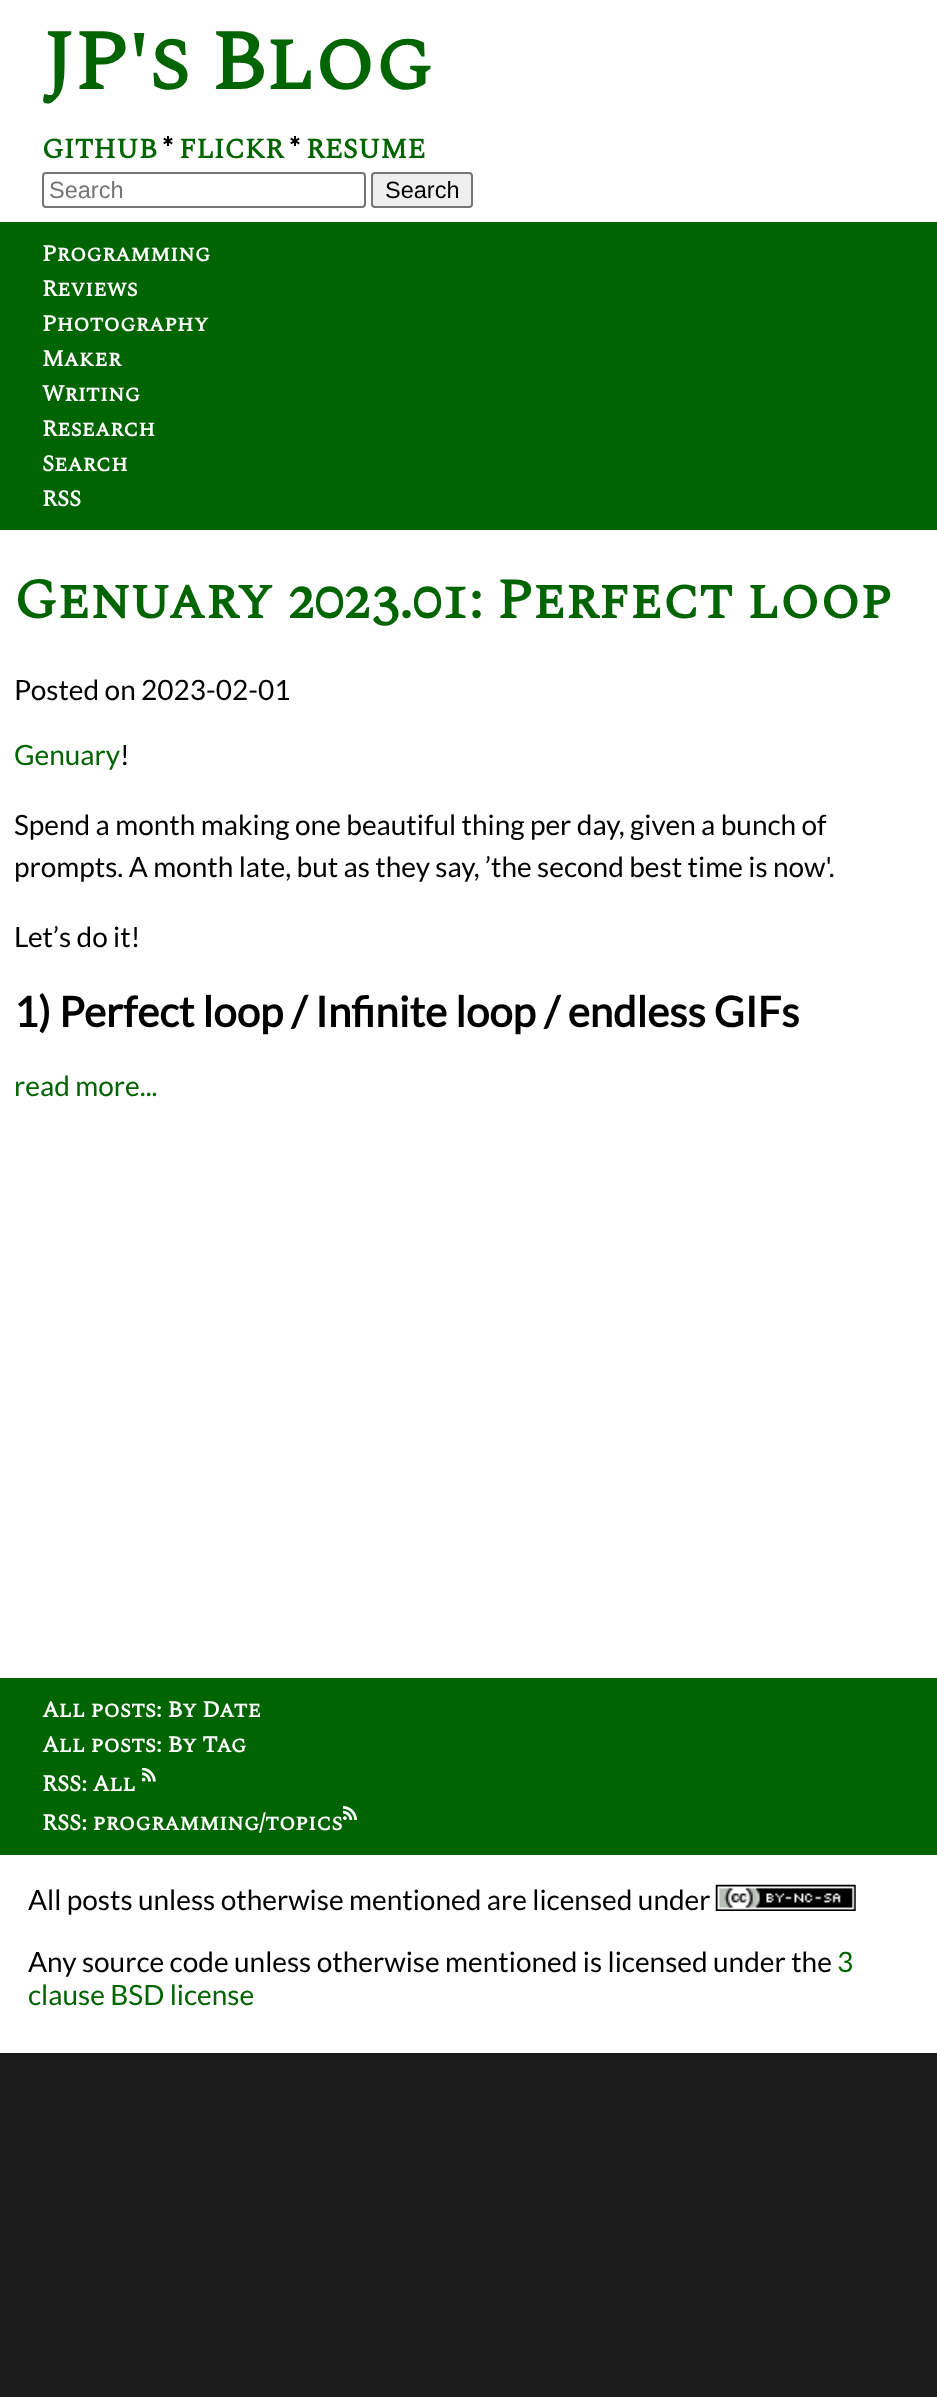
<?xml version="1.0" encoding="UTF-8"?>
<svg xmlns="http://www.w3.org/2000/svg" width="937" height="2397">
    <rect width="100%" height="100%" fill="#1B1B1B"/>
    <rect x="0" y="0" width="937" height="222" fill="#FFFFFF"/>
    <text x="42" y="89" font-family="Spectral SC" font-size="84" font-weight="700" fill="#006400">JP's Blog</text>
    <text x="42" y="158" font-family="Spectral SC" font-size="28" font-weight="700" fill="#006400">GITHUB</text>
    <text x="162" y="158" font-family="Lato" font-size="28" font-weight="700" fill="#000000">*</text>
    <text x="179" y="158" font-family="Spectral SC" font-size="28" font-weight="700" fill="#006400">FLICKR</text>
    <text x="289" y="158" font-family="Lato" font-size="28" font-weight="700" fill="#000000">*</text>
    <text x="306" y="158" font-family="Spectral SC" font-size="28" font-weight="700" fill="#006400">RESUME</text>
    <rect x="43" y="173" width="322" height="34" rx="3" fill="none" stroke="#767676" stroke-width="2"/>
    <text x="49" y="198" font-family="Liberation Sans" font-size="23.5" fill="#757575">Search</text>
    <rect x="372" y="173" width="100" height="34" rx="3" fill="#EFEFEF" stroke="#767676" stroke-width="2"/>
    <text x="385" y="198" font-family="Liberation Sans" font-size="23.5" fill="#000000">Search</text>
    <rect x="0" y="222" width="937" height="308" fill="#006400"/>
    <text font-family="Spectral SC" font-size="22.75" font-weight="700" fill="#FFFFFF">
        <tspan x="42" y="261">Programming</tspan>
        <tspan x="42" y="296">Reviews</tspan>
        <tspan x="42" y="331">Photography</tspan>
        <tspan x="42" y="366">Maker</tspan>
        <tspan x="42" y="401">Writing</tspan>
        <tspan x="42" y="436">Research</tspan>
        <tspan x="42" y="471">Search</tspan>
        <tspan x="42" y="506">RSS</tspan>
    </text>
    <rect x="0" y="530" width="937" height="1148" fill="#FFFFFF"/>
    <text x="14" y="618" font-family="Spectral SC" font-size="56" font-weight="700" fill="#006400">Genuary 2023.01: Perfect loop</text>
    <text x="14" y="700" font-family="Lato" font-size="28" fill="#000000">Posted on 2023-02-01</text>
    <text x="14" y="765" font-family="Lato" font-size="28" fill="#006400">Genuary</text>
    <text x="120" y="765" font-family="Lato" font-size="28" fill="#000000">!</text>
    <text font-family="Lato" font-size="28" fill="#000000">
        <tspan x="14" y="835">Spend a month making one beautiful thing per day, given a bunch of</tspan>
        <tspan x="14" y="877">prompts. A month late, but as they say, ’the second best time is now'.</tspan>
    </text>
    <text x="14" y="947" font-family="Lato" font-size="28" fill="#000000">Let’s do it!</text>
    <text x="14" y="1027" font-family="Lato" font-size="42" font-weight="700" fill="#000000">1) Perfect loop / Infinite loop / endless GIFs</text>
    <text x="14" y="1096" font-family="Lato" font-size="28" fill="#006400">read more...</text>
    <rect x="0" y="1855" width="937" height="198" fill="#FFFFFF"/>
    <rect x="0" y="1678" width="937" height="177" fill="#006400"/>
    <text font-family="Spectral SC" font-size="22.75" font-weight="700" fill="#FFFFFF">
        <tspan x="42" y="1717">All posts: By Date</tspan>
        <tspan x="42" y="1752">All posts: By Tag</tspan>
        <tspan x="42" y="1791">RSS: All</tspan>
    </text>
    <image x="142" y="1768" width="14" height="14" href="img_01.png"/>
    <text x="42" y="1830" font-family="Spectral SC" font-size="22.75" font-weight="700" fill="#FFFFFF">RSS: programming/topics</text>
    <image x="343" y="1806" width="14" height="14" href="img_02.png"/>
    <text x="28" y="1910" font-family="Lato" font-size="28" fill="#000000">All posts unless otherwise mentioned are licensed under</text>
    <image x="715" y="1884" width="141" height="27" href="img_03.png"/>
    <text x="28" y="1972" font-family="Lato" font-size="28" fill="#000000">Any source code unless otherwise mentioned is licensed under the</text>
    <text x="837" y="1972" font-family="Lato" font-size="28" fill="#006400">3</text>
    <text x="28" y="2005" font-family="Lato" font-size="28" fill="#006400">clause BSD license</text>
</svg>
